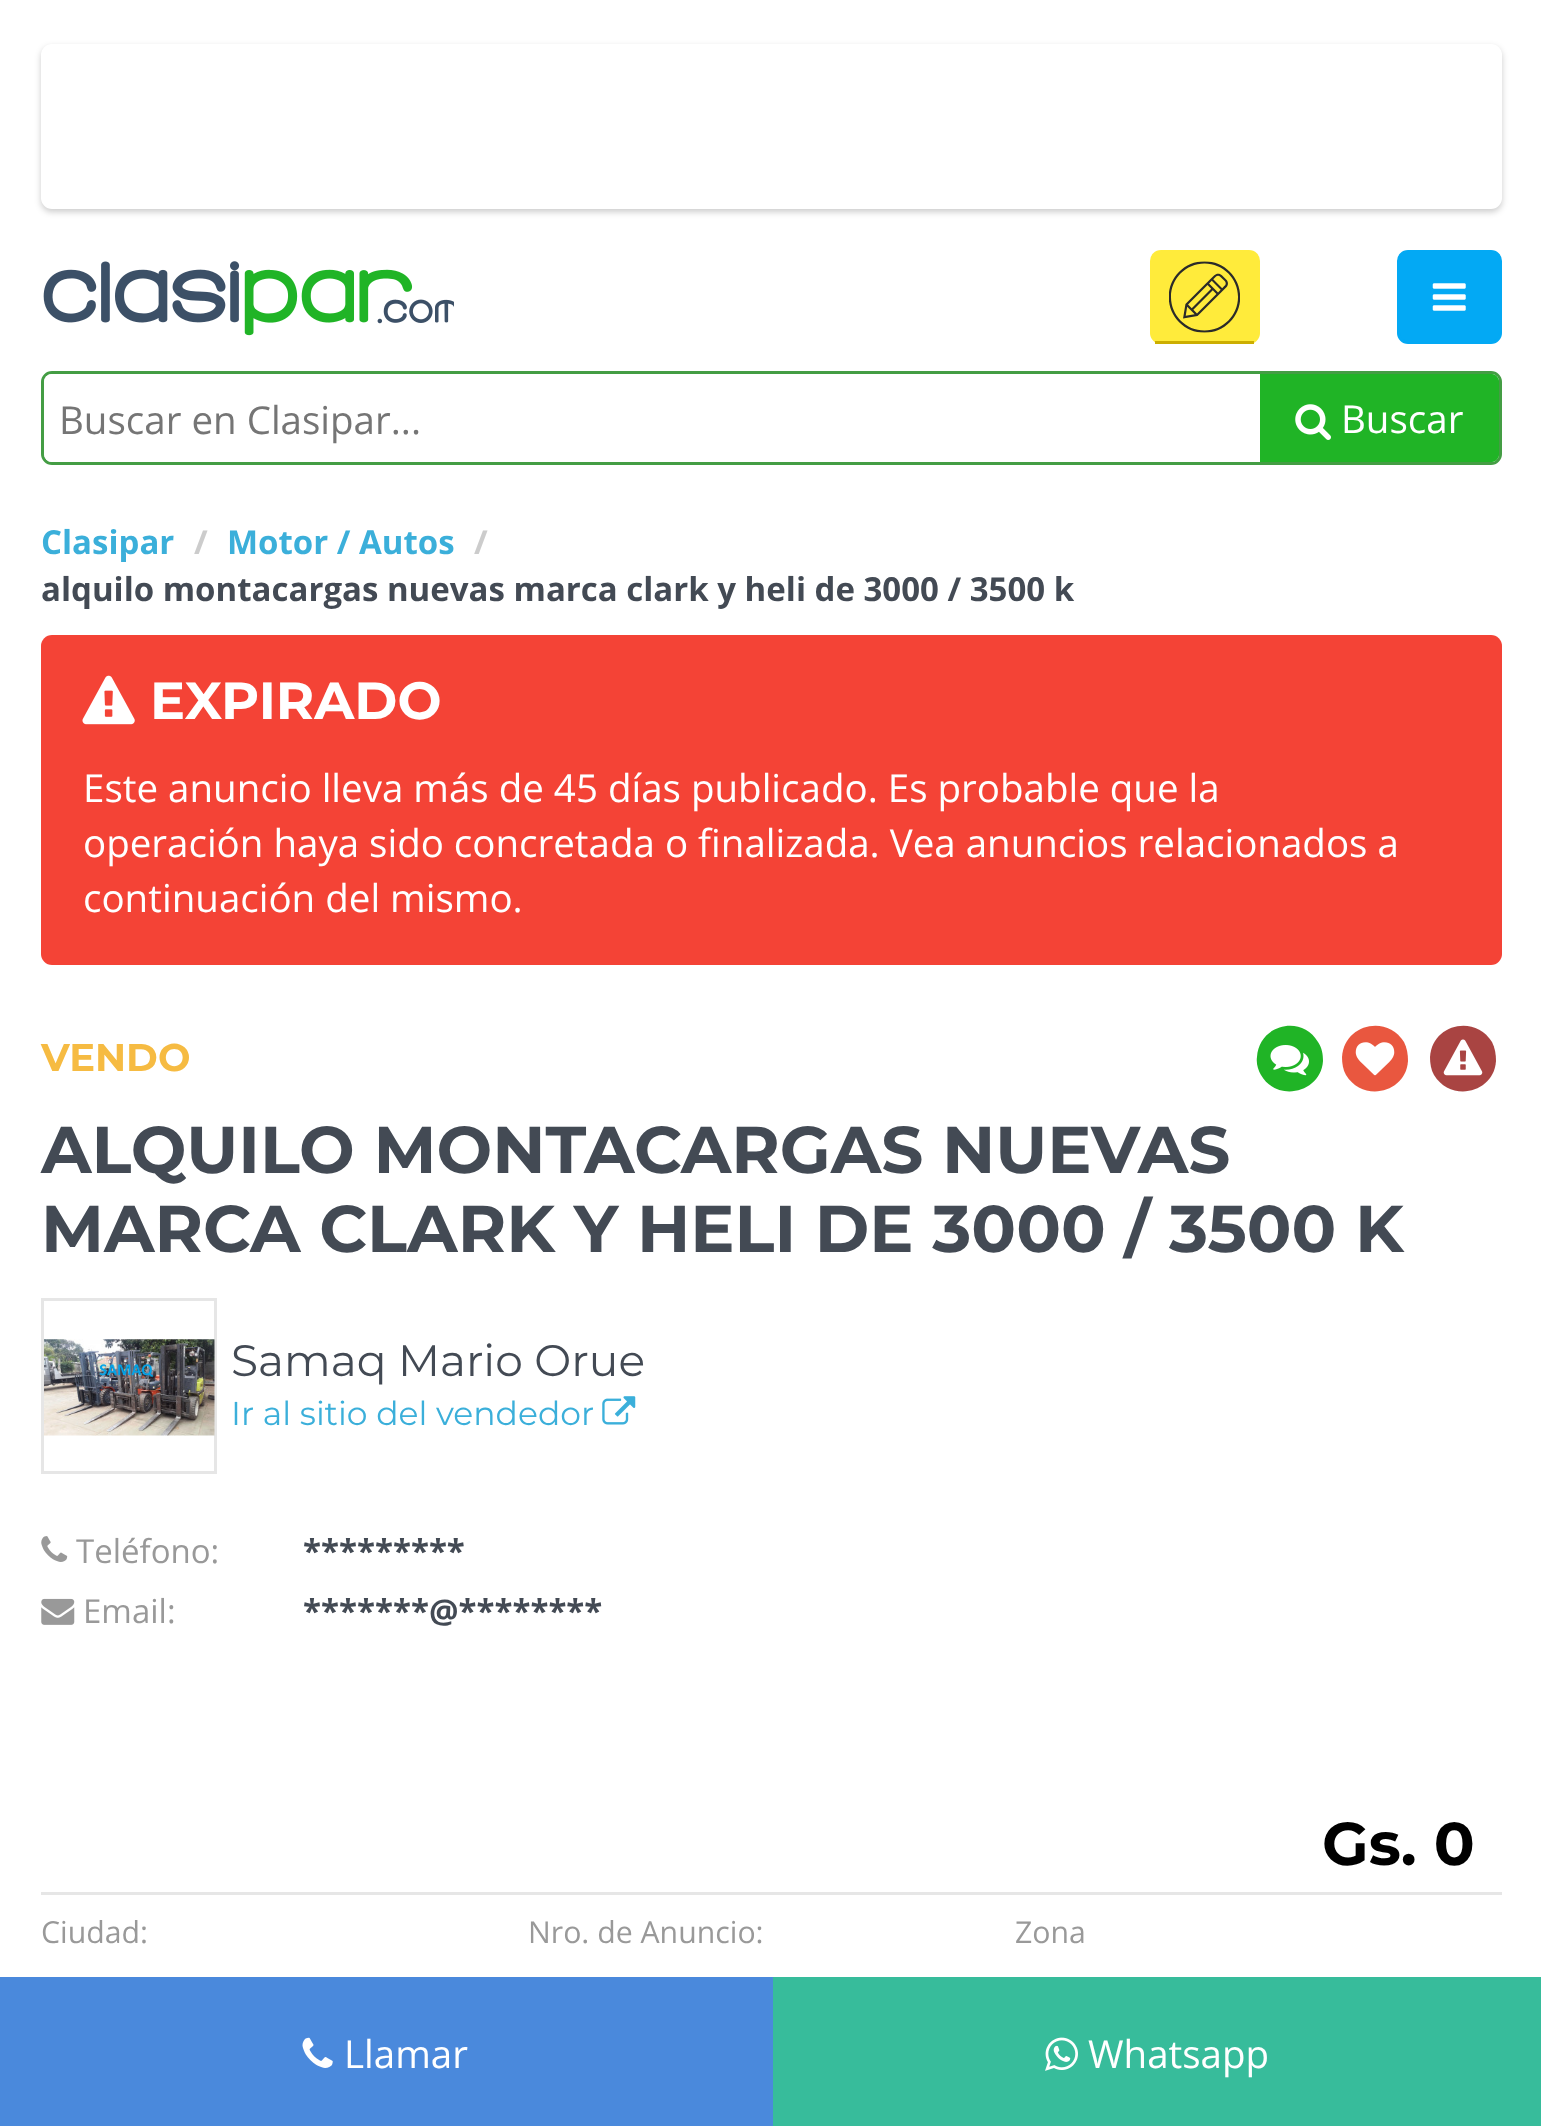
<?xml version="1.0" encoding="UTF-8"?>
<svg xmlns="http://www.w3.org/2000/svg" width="1541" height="2126">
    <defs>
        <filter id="blur1" x="-50%" y="-200%" width="200%" height="500%"><feGaussianBlur stdDeviation="3"/></filter>
    </defs>
    <rect width="100%" height="100%" fill="#FFFFFF"/>
    <rect x="41" y="47" width="1461" height="165" rx="11" fill="#000000" fill-opacity="0.2" filter="url(#blur1)"/>
    <rect x="41" y="44" width="1461" height="165" rx="11" fill="#FFFFFF"/>
    <image x="43" y="261" width="411" height="75" href="img_01.png"/>
    <rect x="1150" y="250" width="110" height="94" rx="11" fill="#FFEB3B"/>
    <rect x="1155" y="341" width="99" height="3" fill="#CCAE00"/>
    <image x="1169" y="261" width="71" height="72" href="img_02.png"/>
    <rect x="1398.5" y="251.5" width="102" height="91" rx="9.5" fill="#03A9F4" stroke="#03A9F4" stroke-width="3"/>
    <image x="1432" y="283" width="34" height="28" href="img_03.png"/>
    <rect x="42.5" y="372.5" width="1458" height="91" rx="9.5" fill="none" stroke="#449D44" stroke-width="3"/>
    <rect x="44" y="374" width="1455" height="88" rx="8" fill="#FFFFFF"/>
    <text x="59" y="434" font-family="Open Sans" font-size="38.5" fill="#757575">Buscar en Clasipar...</text>
    <path d="M 1260 374 H 1491 C 1495.5 374 1499 377.5 1499 382 V 454 C 1499 458.5 1495.5 462 1491 462 H 1260 Z" fill="#20B426"/>
    <path d="M 1260 374 V 462 H 1491 C 1495 462 1499 458 1499 454 V 382 C 1499 378 1495 374 1491 374 Z M 1263 377 V 459 H 1496 V 377 Z" fill="#20B426" fill-rule="evenodd"/>
    <image x="1295" y="404" width="36" height="36" href="img_04.png"/>
    <text x="1341" y="433" font-family="Open Sans" font-size="38.5" fill="#FFFFFF">Buscar</text>
    <text x="41" y="554" font-family="Open Sans" font-size="33" font-weight="700" fill="#3BAFDA">Clasipar</text>
    <text x="194" y="554" font-family="Open Sans" font-size="33" font-weight="700" fill="#CCCCCC">/</text>
    <text x="227" y="554" font-family="Open Sans" font-size="33" font-weight="700" fill="#3BAFDA">Motor / Autos</text>
    <text x="474" y="554" font-family="Open Sans" font-size="33" font-weight="700" fill="#CCCCCC">/</text>
    <text x="41" y="601" font-family="Open Sans" font-size="33" font-weight="700" fill="#434A54">alquilo montacargas nuevas marca clark y heli de 3000 / 3500 k</text>
    <rect x="41" y="635" width="1461" height="330" rx="11" fill="#F44336"/>
    <image x="82" y="675" width="53" height="50" href="img_05.png"/>
    <text x="150" y="719" font-family="Montserrat" font-size="52.25" font-weight="700" fill="#FFFFFF">EXPIRADO</text>
    <text font-family="Open Sans" font-size="38.5" fill="#FFFFFF">
        <tspan x="83" y="802">Este anuncio lleva más de 45 días publicado. Es probable que la</tspan>
        <tspan x="83" y="857">operación haya sido concretada o finalizada. Vea anuncios relacionados a</tspan>
        <tspan x="83" y="912">continuación del mismo.</tspan>
    </text>
    <text x="41" y="1071" font-family="Montserrat" font-size="38.5" font-weight="700" fill="#F6BB42">VENDO</text>
    <path d="M 1318 1042 C 1322 1048 1323 1054 1323 1061 C 1321 1093 1277 1103 1261 1075 C 1258 1070 1256 1063 1257 1057 C 1259 1024 1302 1014 1318 1042 Z" fill="#20B426"/>
    <image x="1270" y="1045" width="39" height="31" href="img_06.png"/>
    <path d="M 1404 1042 C 1407 1048 1408 1054 1408 1061 C 1406 1093 1363 1103 1346 1075 C 1343 1070 1342 1063 1342 1057 C 1344 1024 1387 1014 1404 1042 Z" fill="#E9573F"/>
    <image x="1355" y="1042" width="40" height="34" href="img_07.png"/>
    <path d="M 1492 1042 C 1495 1048 1496 1054 1496 1061 C 1494 1093 1451 1103 1434 1075 C 1431 1070 1430 1063 1430 1057 C 1432 1024 1475 1014 1492 1042 Z" fill="#A94442"/>
    <image x="1443" y="1039" width="40" height="37" href="img_08.png"/>
    <text font-family="Montserrat" font-size="66" font-weight="700" fill="#434A54">
        <tspan x="41" y="1173">ALQUILO MONTACARGAS NUEVAS</tspan>
        <tspan x="41" y="1252">MARCA CLARK Y HELI DE 3000 / 3500 K</tspan>
    </text>
    <rect x="42.5" y="1299.5" width="173" height="173" fill="none" stroke="#E6E6E6" stroke-width="3"/>
    <image x="44" y="1339" width="171" height="97" href="img_09.png"/>
    <text x="231" y="1376" font-family="Montserrat" font-size="44" fill="#434A54">Samaq Mario Orue</text>
    <text x="231" y="1425" font-family="Montserrat" font-size="33" fill="#3BAFDA">Ir al sitio del vendedor</text>
    <image x="602" y="1396" width="34" height="29" href="img_10.png"/>
    <image x="41" y="1536" width="27" height="26" href="img_11.png"/>
    <text x="76" y="1563" font-family="Open Sans" font-size="33" fill="#999999">Teléfono:</text>
    <text x="303" y="1563" font-family="Open Sans" font-size="33" font-weight="700" fill="#434A54">*********</text>
    <image x="41" y="1598" width="34" height="27" href="img_12.png"/>
    <text x="83" y="1623" font-family="Open Sans" font-size="33" fill="#999999">Email:</text>
    <text x="303" y="1623" font-family="Open Sans" font-size="33" font-weight="700" fill="#434A54">*******@********</text>
    <text x="1322" y="1865" font-family="Montserrat" font-size="60.5" font-weight="700" fill="#000000">Gs. 0</text>
    <rect x="41" y="1892" width="1461" height="3" fill="#E6E6E6"/>
    <text x="41" y="1943" font-family="Open Sans" font-size="30.25" fill="#999999">Ciudad:</text>
    <text x="528" y="1943" font-family="Open Sans" font-size="30.25" fill="#999999">Nro. de Anuncio:</text>
    <text x="1015" y="1943" font-family="Open Sans" font-size="30.25" fill="#999999">Zona</text>
    <rect x="0" y="1977" width="773" height="149" fill="#4A89DC"/>
    <image x="302" y="2037" width="31" height="31" href="img_13.png"/>
    <text x="344" y="2068" font-family="Open Sans" font-size="38.5" fill="#FFFFFF">Llamar</text>
    <rect x="773" y="1977" width="768" height="149" fill="#37BC9B"/>
    <image x="1045" y="2037" width="33" height="34" href="img_14.png"/>
    <text x="1088" y="2068" font-family="Open Sans" font-size="38.5" fill="#FFFFFF">Whatsapp</text>
</svg>
